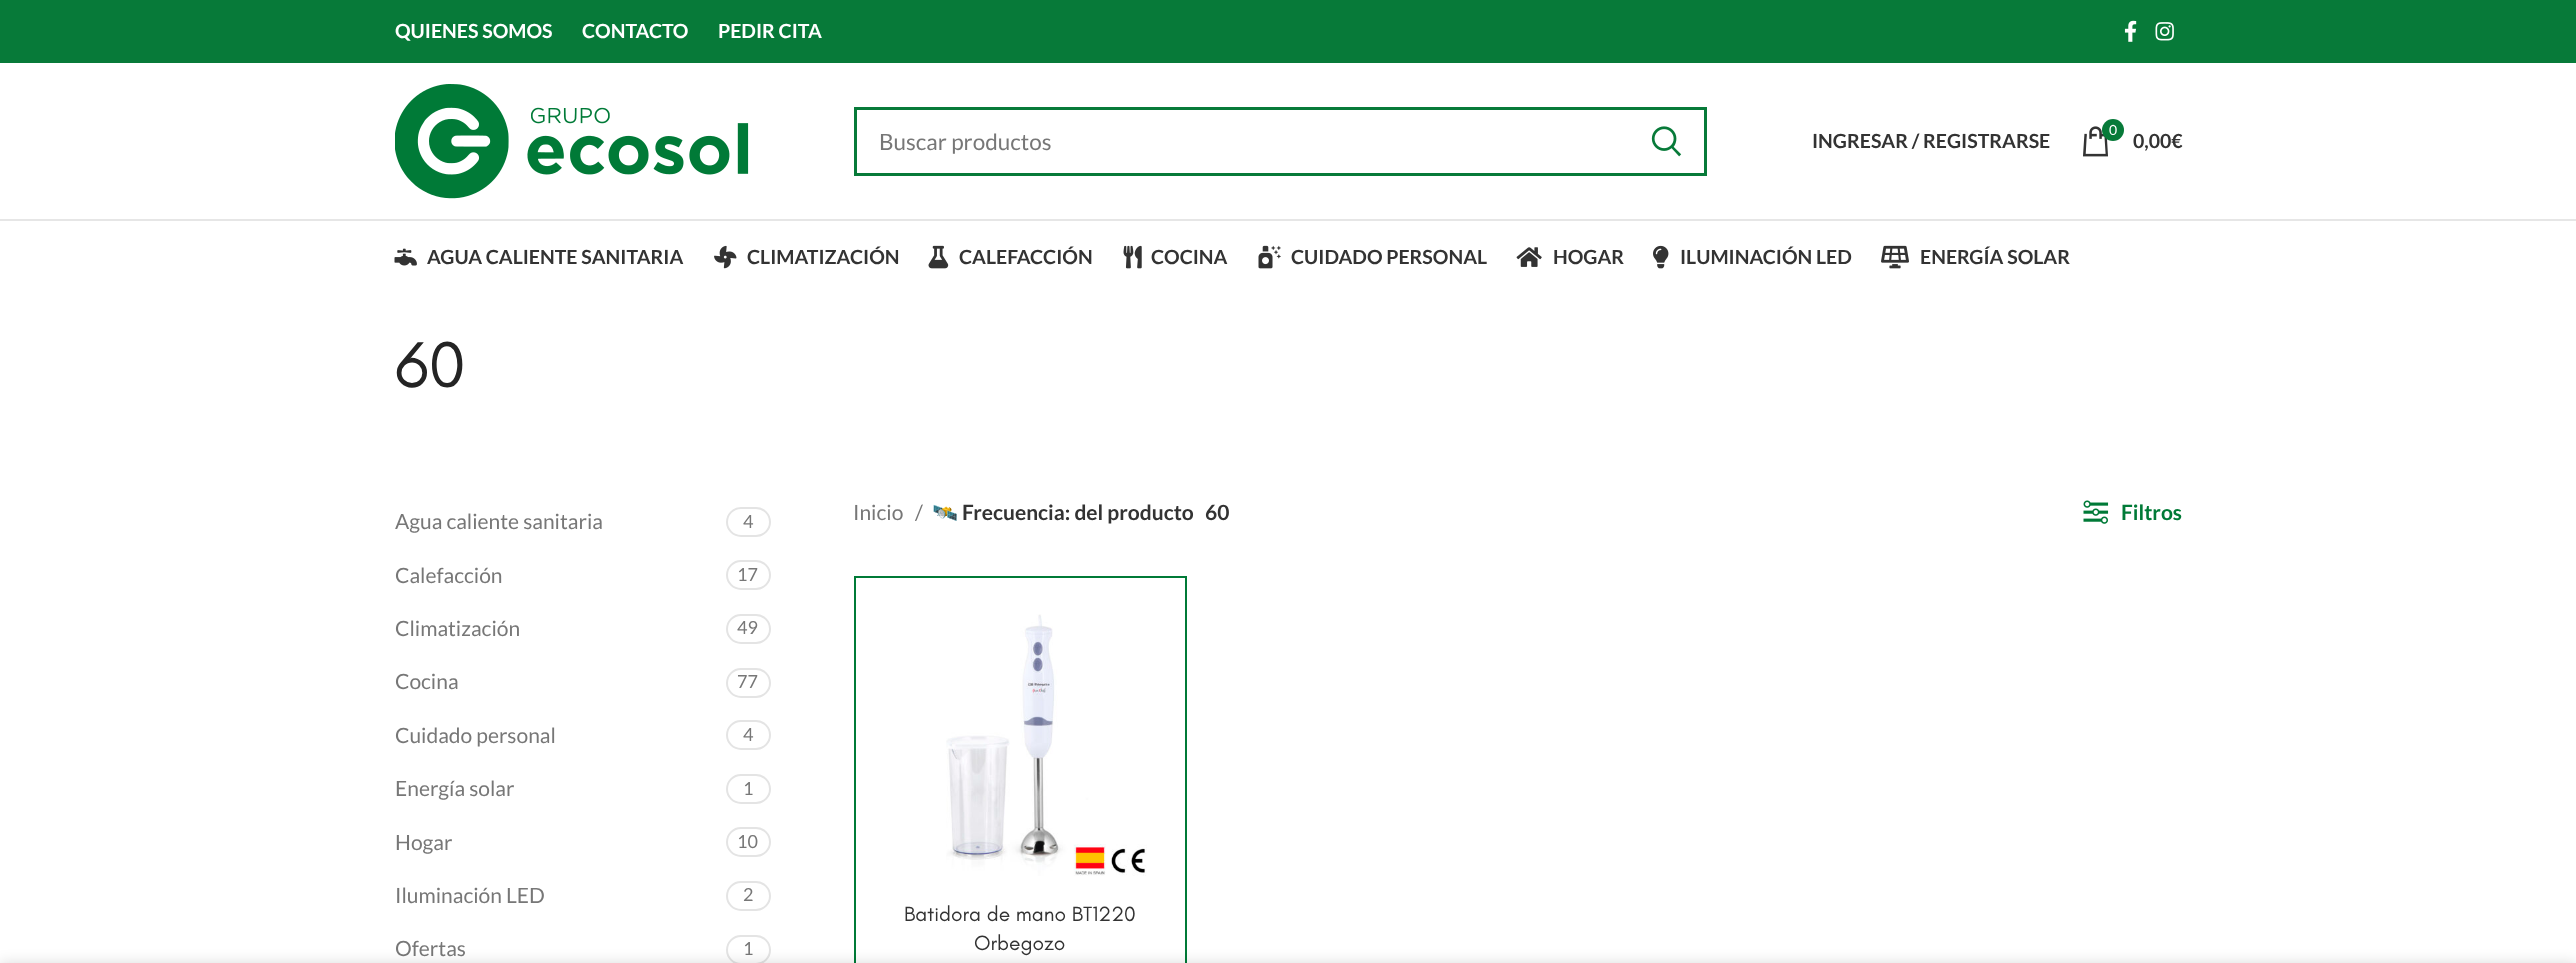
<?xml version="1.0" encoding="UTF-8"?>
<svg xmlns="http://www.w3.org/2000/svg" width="2576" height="963">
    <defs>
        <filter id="blur1" x="-50%" y="-200%" width="200%" height="500%"><feGaussianBlur stdDeviation="7"/></filter>
    </defs>
    <rect width="100%" height="100%" fill="#FFFFFF"/>
    <rect x="0" y="0" width="2576" height="63" fill="#077A39"/>
    <text x="395" y="38" font-family="Lato" font-size="19.5" font-weight="700" fill="#FFFFFF">QUIENES SOMOS</text>
    <text x="582" y="38" font-family="Lato" font-size="19.5" font-weight="700" fill="#FFFFFF">CONTACTO</text>
    <text x="718" y="38" font-family="Lato" font-size="19.5" font-weight="700" fill="#FFFFFF">PEDIR CITA</text>
    <image x="2124" y="20" width="13" height="22" href="img_01.png"/>
    <image x="2155" y="22" width="19" height="19" href="img_02.png"/>
    <rect x="0" y="219" width="2576" height="2" fill="#E6E6E6"/>
    <image x="395" y="84" width="354" height="115" href="img_03.png"/>
    <rect x="855.5" y="108.5" width="850" height="66" fill="none" stroke="#077A39" stroke-width="3"/>
    <text x="879" y="150" font-family="Lato" font-size="22.5" fill="#777777">Buscar productos</text>
    <image x="1651" y="126" width="31" height="31" href="img_04.png"/>
    <text x="1812" y="148" font-family="Lato" font-size="19.5" font-weight="700" fill="#333333">INGRESAR / REGISTRARSE</text>
    <image x="2083" y="126" width="25" height="31" href="img_05.png"/>
    <circle cx="2113" cy="130" r="11" fill="#077A39"/>
    <text x="2109" y="135" font-family="Lato" font-size="14" fill="#FFFFFF">0</text>
    <text x="2133" y="148" font-family="Lato" font-size="19.5" font-weight="700" fill="#333333">0,00€</text>
    <image x="394" y="248" width="23" height="18" href="img_06.png"/>
    <text x="427" y="264" font-family="Lato" font-size="19.5" font-weight="700" fill="#333333">AGUA CALIENTE SANITARIA</text>
    <image x="714" y="245" width="23" height="24" href="img_07.png"/>
    <text x="747" y="264" font-family="Lato" font-size="19.5" font-weight="700" fill="#333333">CLIMATIZACIÓN</text>
    <image x="928" y="245" width="21" height="24" href="img_08.png"/>
    <text x="959" y="264" font-family="Lato" font-size="19.5" font-weight="700" fill="#333333">CALEFACCIÓN</text>
    <image x="1123" y="245" width="19" height="24" href="img_09.png"/>
    <text x="1151" y="264" font-family="Lato" font-size="19.5" font-weight="700" fill="#333333">COCINA</text>
    <image x="1258" y="245" width="23" height="24" href="img_10.png"/>
    <text x="1291" y="264" font-family="Lato" font-size="19.5" font-weight="700" fill="#333333">CUIDADO PERSONAL</text>
    <image x="1516" y="247" width="26" height="20" href="img_11.png"/>
    <text x="1553" y="264" font-family="Lato" font-size="19.5" font-weight="700" fill="#333333">HOGAR</text>
    <image x="1653" y="245" width="16" height="24" href="img_12.png"/>
    <text x="1680" y="264" font-family="Lato" font-size="19.5" font-weight="700" fill="#333333">ILUMINACIÓN LED</text>
    <image x="1881" y="245" width="28" height="24" href="img_13.png"/>
    <text x="1920" y="264" font-family="Lato" font-size="19.5" font-weight="700" fill="#333333">ENERGÍA SOLAR</text>
    <text x="395" y="387" font-family="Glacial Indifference" font-size="66" fill="#242424">60</text>
    <text x="395" y="529" font-family="Lato" font-size="21" fill="#777777">Agua caliente sanitaria</text>
    <rect x="727" y="508" width="43" height="28" rx="14" fill="none" stroke="#E4E4E4" stroke-width="2"/>
    <text x="743" y="528" font-family="Lato" font-size="18" fill="#777777">4</text>
    <text x="395" y="583" font-family="Lato" font-size="21" fill="#777777">Calefacción</text>
    <rect x="727" y="561" width="43" height="28" rx="14" fill="none" stroke="#E4E4E4" stroke-width="2"/>
    <text x="737" y="581" font-family="Lato" font-size="18" fill="#777777">17</text>
    <text x="395" y="636" font-family="Lato" font-size="21" fill="#777777">Climatización</text>
    <rect x="727" y="615" width="43" height="28" rx="14" fill="none" stroke="#E4E4E4" stroke-width="2"/>
    <text x="737" y="634" font-family="Lato" font-size="18" fill="#777777">49</text>
    <text x="395" y="689" font-family="Lato" font-size="21" fill="#777777">Cocina</text>
    <rect x="727" y="669" width="43" height="28" rx="14" fill="none" stroke="#E4E4E4" stroke-width="2"/>
    <text x="737" y="688" font-family="Lato" font-size="18" fill="#777777">77</text>
    <text x="395" y="743" font-family="Lato" font-size="21" fill="#777777">Cuidado personal</text>
    <rect x="727" y="721" width="43" height="28" rx="14" fill="none" stroke="#E4E4E4" stroke-width="2"/>
    <text x="743" y="741" font-family="Lato" font-size="18" fill="#777777">4</text>
    <text x="395" y="796" font-family="Lato" font-size="21" fill="#777777">Energía solar</text>
    <rect x="727" y="775" width="43" height="28" rx="14" fill="none" stroke="#E4E4E4" stroke-width="2"/>
    <text x="743" y="795" font-family="Lato" font-size="18" fill="#777777">1</text>
    <text x="395" y="850" font-family="Lato" font-size="21" fill="#777777">Hogar</text>
    <rect x="727" y="828" width="43" height="28" rx="14" fill="none" stroke="#E4E4E4" stroke-width="2"/>
    <text x="737" y="848" font-family="Lato" font-size="18" fill="#777777">10</text>
    <text x="395" y="903" font-family="Lato" font-size="21" fill="#777777">Iluminación LED</text>
    <rect x="727" y="882" width="43" height="28" rx="14" fill="none" stroke="#E4E4E4" stroke-width="2"/>
    <text x="743" y="901" font-family="Lato" font-size="18" fill="#777777">2</text>
    <text x="395" y="956" font-family="Lato" font-size="21" fill="#777777">Ofertas</text>
    <rect x="727" y="936" width="43" height="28" rx="14" fill="none" stroke="#E4E4E4" stroke-width="2"/>
    <text x="743" y="955" font-family="Lato" font-size="18" fill="#777777">1</text>
    <text x="853" y="520" font-family="Lato" font-size="21" fill="#777777">Inicio</text>
    <text x="915" y="520" font-family="Lato" font-size="21" fill="#777777">/</text>
    <text x="932" y="520" font-family="Noto Color Emoji" font-size="21" font-weight="700" fill="#333333">🛰️</text>
    <text x="962" y="520" font-family="Lato" font-size="21" font-weight="700" fill="#333333">Frecuencia: del producto</text>
    <text x="1205" y="520" font-family="Lato" font-size="21" font-weight="700" fill="#333333">60</text>
    <image x="2083" y="500" width="26" height="24" href="img_14.png"/>
    <text x="2121" y="520" font-family="Lato" font-size="21" font-weight="700" fill="#007A37">Filtros</text>
    <rect x="854" y="576" width="2" height="387" fill="#007A37"/>
    <rect x="855" y="576" width="332" height="2" fill="#007A37"/>
    <rect x="1185" y="576" width="2" height="387" fill="#007A37"/>
    <image x="946" y="614" width="201" height="262" href="img_15.png"/>
    <text x="904" y="921" font-family="Glacial Indifference" font-size="21" fill="#333333">Batidora de mano BT1220</text>
    <text x="974" y="950" font-family="Glacial Indifference" font-size="21" fill="#333333">Orbegozo</text>
    <rect x="0" y="963" width="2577" height="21" fill="#000000" fill-opacity="0.14" filter="url(#blur1)"/>
</svg>
